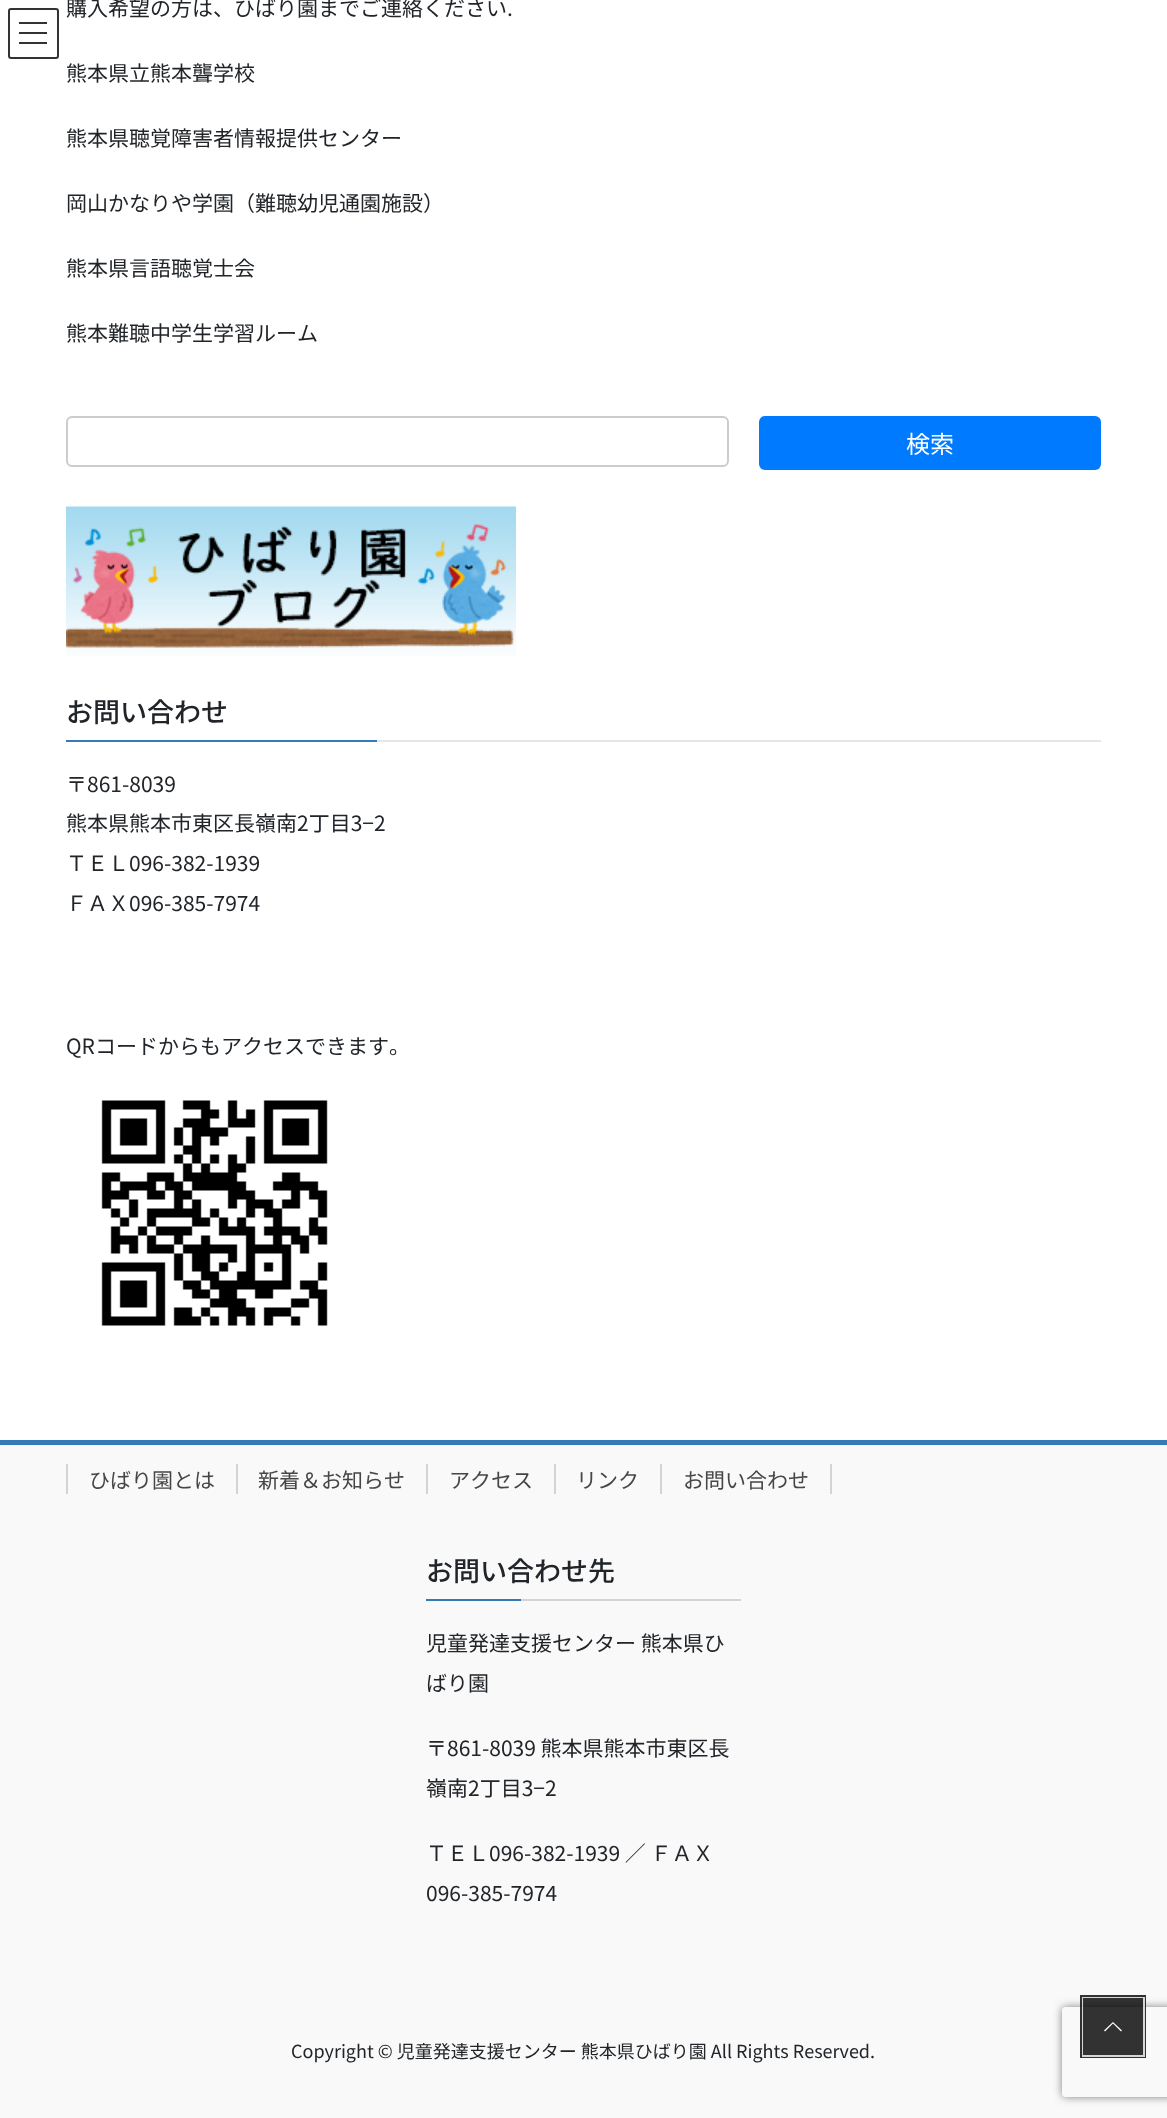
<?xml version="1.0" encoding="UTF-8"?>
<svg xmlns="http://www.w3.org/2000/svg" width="1167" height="2118">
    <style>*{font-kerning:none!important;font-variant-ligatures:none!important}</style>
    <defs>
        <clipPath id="clip1"><path d="M 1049 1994 H 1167 V 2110 H 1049 Z M 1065 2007 H 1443 C 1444.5 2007 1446 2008.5 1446 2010 V 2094 C 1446 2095.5 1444.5 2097 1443 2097 H 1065 C 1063.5 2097 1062 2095.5 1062 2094 V 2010 C 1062 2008.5 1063.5 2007 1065 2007 Z" clip-rule="evenodd"/></clipPath>
        <filter id="blur1" x="-50%" y="-200%" width="200%" height="500%"><feGaussianBlur stdDeviation="4"/></filter>
    </defs>
    <rect width="100%" height="100%" fill="#FFFFFF"/>
    <rect x="19" y="22" width="28" height="2" fill="#333333"/>
    <rect x="19" y="32" width="28" height="2" fill="#333333"/>
    <rect x="19" y="42" width="28" height="2" fill="#333333"/>
    <rect x="9" y="9" width="49" height="49" rx="2" fill="none" stroke="#333333" stroke-width="2"/>
    <text x="66" y="16" font-family="Noto Sans JP" font-size="21" fill="#212529">購入希望の方は、ひばり園までご連絡ください.</text>
    <text x="66" y="81" font-family="Noto Sans JP" font-size="21" fill="#212529">熊本県立熊本聾学校</text>
    <text x="66" y="146" font-family="Noto Sans JP" font-size="21" fill="#212529">熊本県聴覚障害者情報提供センター</text>
    <text x="66" y="211" font-family="Noto Sans JP" font-size="21" fill="#212529">岡山かなりや学園（難聴幼児通園施設）</text>
    <text x="66" y="276" font-family="Noto Sans JP" font-size="21" fill="#212529">熊本県言語聴覚士会</text>
    <text x="66" y="341" font-family="Noto Sans JP" font-size="21" fill="#212529">熊本難聴中学生学習ルーム</text>
    <rect x="67" y="417" width="661" height="49" rx="5" fill="none" stroke="#CCCCCC" stroke-width="2"/>
    <rect x="759" y="416" width="342" height="54" rx="6" fill="#007BFF"/>
    <text x="906" y="453" font-family="Noto Sans JP" font-size="24" fill="#FFFFFF">検索</text>
    <image x="66" y="506" width="450" height="150" href="img_01.png"/>
    <rect x="377" y="740" width="724" height="2" fill="#E6E6E6"/>
    <text x="66" y="722" font-family="Noto Sans JP" font-size="27" font-weight="500" fill="#212529">お問い合わせ</text>
    <rect x="66" y="740" width="311" height="2" fill="#337AB7"/>
    <text font-family="Noto Sans JP" font-size="21" fill="#212529">
        <tspan x="66" y="792">〒861-8039</tspan>
        <tspan x="66" y="831">熊本県熊本市東区長嶺南2丁目3−2</tspan>
        <tspan x="66" y="871">ＴＥＬ096-382-1939</tspan>
        <tspan x="66" y="911">ＦＡＸ096-385-7974</tspan>
    </text>
    <text x="66" y="1054" font-family="Noto Sans JP" font-size="21" fill="#212529">QRコードからもアクセスできます。</text>
    <image x="101" y="1100" width="227" height="226" href="img_02.png"/>
    <rect x="0" y="1445" width="1167" height="673" fill="#F9F9F9"/>
    <rect x="0" y="1440" width="1167" height="5" fill="#337AB7"/>
    <text x="89" y="1488" font-family="Noto Sans JP" font-size="21" fill="#464646">ひばり園とは</text>
    <rect x="66" y="1464" width="2" height="30" fill="#D4D4D4"/>
    <text x="258" y="1488" font-family="Noto Sans JP" font-size="21" fill="#464646">新着＆お知らせ</text>
    <rect x="236" y="1464" width="2" height="30" fill="#D4D4D4"/>
    <text x="449" y="1488" font-family="Noto Sans JP" font-size="21" fill="#464646">アクセス</text>
    <rect x="426" y="1464" width="2" height="30" fill="#D4D4D4"/>
    <text x="576" y="1488" font-family="Noto Sans JP" font-size="21" fill="#464646">リンク</text>
    <rect x="554" y="1464" width="2" height="30" fill="#D4D4D4"/>
    <text x="683" y="1488" font-family="Noto Sans JP" font-size="21" fill="#464646">お問い合わせ</text>
    <rect x="830" y="1464" width="2" height="30" fill="#D4D4D4"/>
    <rect x="660" y="1464" width="2" height="30" fill="#D4D4D4"/>
    <rect x="521" y="1599" width="220" height="2" fill="#D4D4D4"/>
    <text x="426" y="1581" font-family="Noto Sans JP" font-size="27" font-weight="500" fill="#212529">お問い合わせ先</text>
    <rect x="426" y="1599" width="95" height="2" fill="#337AB7"/>
    <text font-family="Noto Sans JP" font-size="21" fill="#212529">
        <tspan x="426" y="1651">児童発達支援センター 熊本県ひ</tspan>
        <tspan x="426" y="1691">ばり園</tspan>
    </text>
    <text font-family="Noto Sans JP" font-size="21" fill="#212529">
        <tspan x="426" y="1756">〒861-8039 熊本県熊本市東区長</tspan>
        <tspan x="426" y="1796">嶺南2丁目3−2</tspan>
    </text>
    <text font-family="Noto Sans JP" font-size="21" fill="#212529">
        <tspan x="426" y="1861">ＴＥＬ096-382-1939 ／ ＦＡＸ</tspan>
        <tspan x="426" y="1901">096-385-7974</tspan>
    </text>
    <text x="291" y="2058" font-family="Noto Sans JP" font-size="18" fill="#212529">Copyright © 児童発達支援センター 熊本県ひばり園 All Rights Reserved.</text>
    <g clip-path="url(#clip1)">
        <rect x="1062" y="2007" width="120" height="90" rx="3" fill="#808080" filter="url(#blur1)"/>
    </g>
    <rect x="1081.5" y="1996.5" width="63" height="60" fill="none" stroke="#000000" stroke-opacity="0.8" stroke-width="3"/>
    <rect x="1083" y="1998" width="61" height="58" fill="none" stroke="#FFFFFF" stroke-opacity="0.8" stroke-width="2"/>
    <rect x="1083" y="1998" width="60" height="57" fill="#000000" fill-opacity="0.8"/>
    <path d="M 1122 2030.5 L 1121 2031.5 L 1113 2023.5 L 1105 2031.5 L 1104 2030.5 L 1113 2022 Z" fill="#FFFFFF"/>
</svg>
